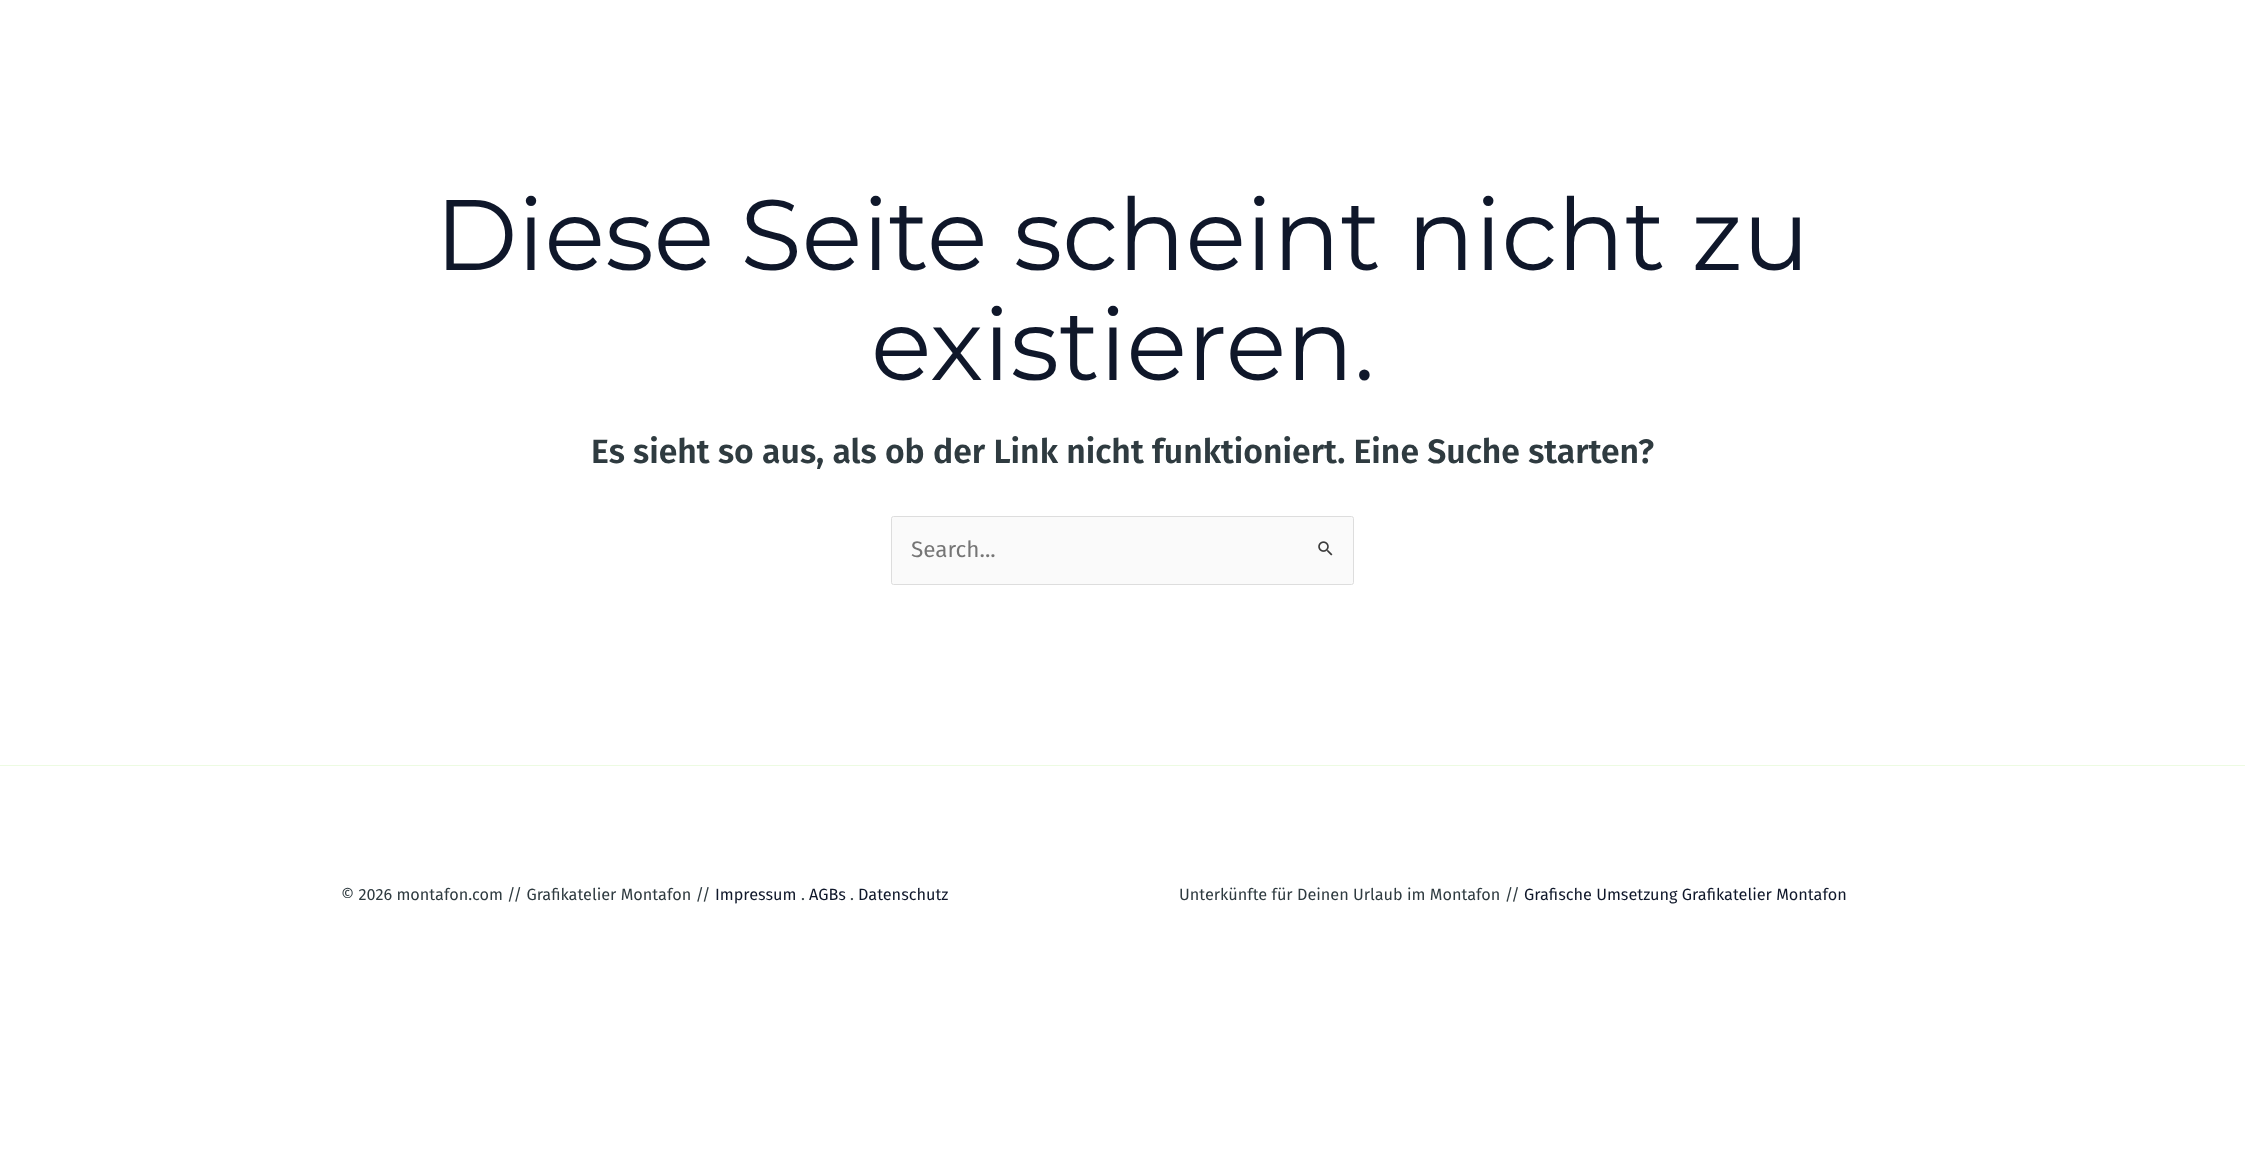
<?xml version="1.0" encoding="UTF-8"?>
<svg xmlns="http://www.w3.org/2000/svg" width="2245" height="1167">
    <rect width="100%" height="100%" fill="#FFFFFF"/>
    <text x="435" y="270" font-family="Montserrat" font-size="100" fill="#0F172A">Diese Seite scheint nicht zu</text>
    <text x="871" y="380" font-family="Montserrat" font-size="100" fill="#0F172A">existieren.</text>
    <text x="591" y="463" font-family="Fira Sans" font-size="33.75" font-weight="600" fill="#2F3B40">Es sieht so aus, als ob der Link nicht funktioniert. Eine Suche starten?</text>
    <rect x="891.5" y="516.5" width="462" height="68" rx="2" fill="#FAFAFA" stroke="#DDDDDD"/>
    <text x="911" y="557" font-family="Fira Sans" font-size="22.5" fill="#757575">Search...</text>
    <image x="1318" y="541" width="15" height="15" href="img_01.png"/>
    <rect x="0" y="765" width="2245" height="1" fill="#EDFBE2"/>
    <text x="341" y="900" font-family="Fira Sans" font-size="16.25" fill="#2F3B40">© 2026 montafon.com // Grafikatelier Montafon //</text>
    <text x="715" y="900" font-family="Fira Sans" font-size="16.25" fill="#0F172A">Impressum</text>
    <text x="801" y="900" font-family="Fira Sans" font-size="16.25" fill="#2F3B40">.</text>
    <text x="809" y="900" font-family="Fira Sans" font-size="16.25" fill="#0F172A">AGBs</text>
    <text x="850" y="900" font-family="Fira Sans" font-size="16.25" fill="#2F3B40">.</text>
    <text x="858" y="900" font-family="Fira Sans" font-size="16.25" fill="#0F172A">Datenschutz</text>
    <text x="1179" y="900" font-family="Fira Sans" font-size="16.25" fill="#2F3B40">Unterkünfte für Deinen Urlaub im Montafon //</text>
    <text x="1524" y="900" font-family="Fira Sans" font-size="16.25" fill="#0F172A">Grafische Umsetzung Grafikatelier Montafon</text>
</svg>
